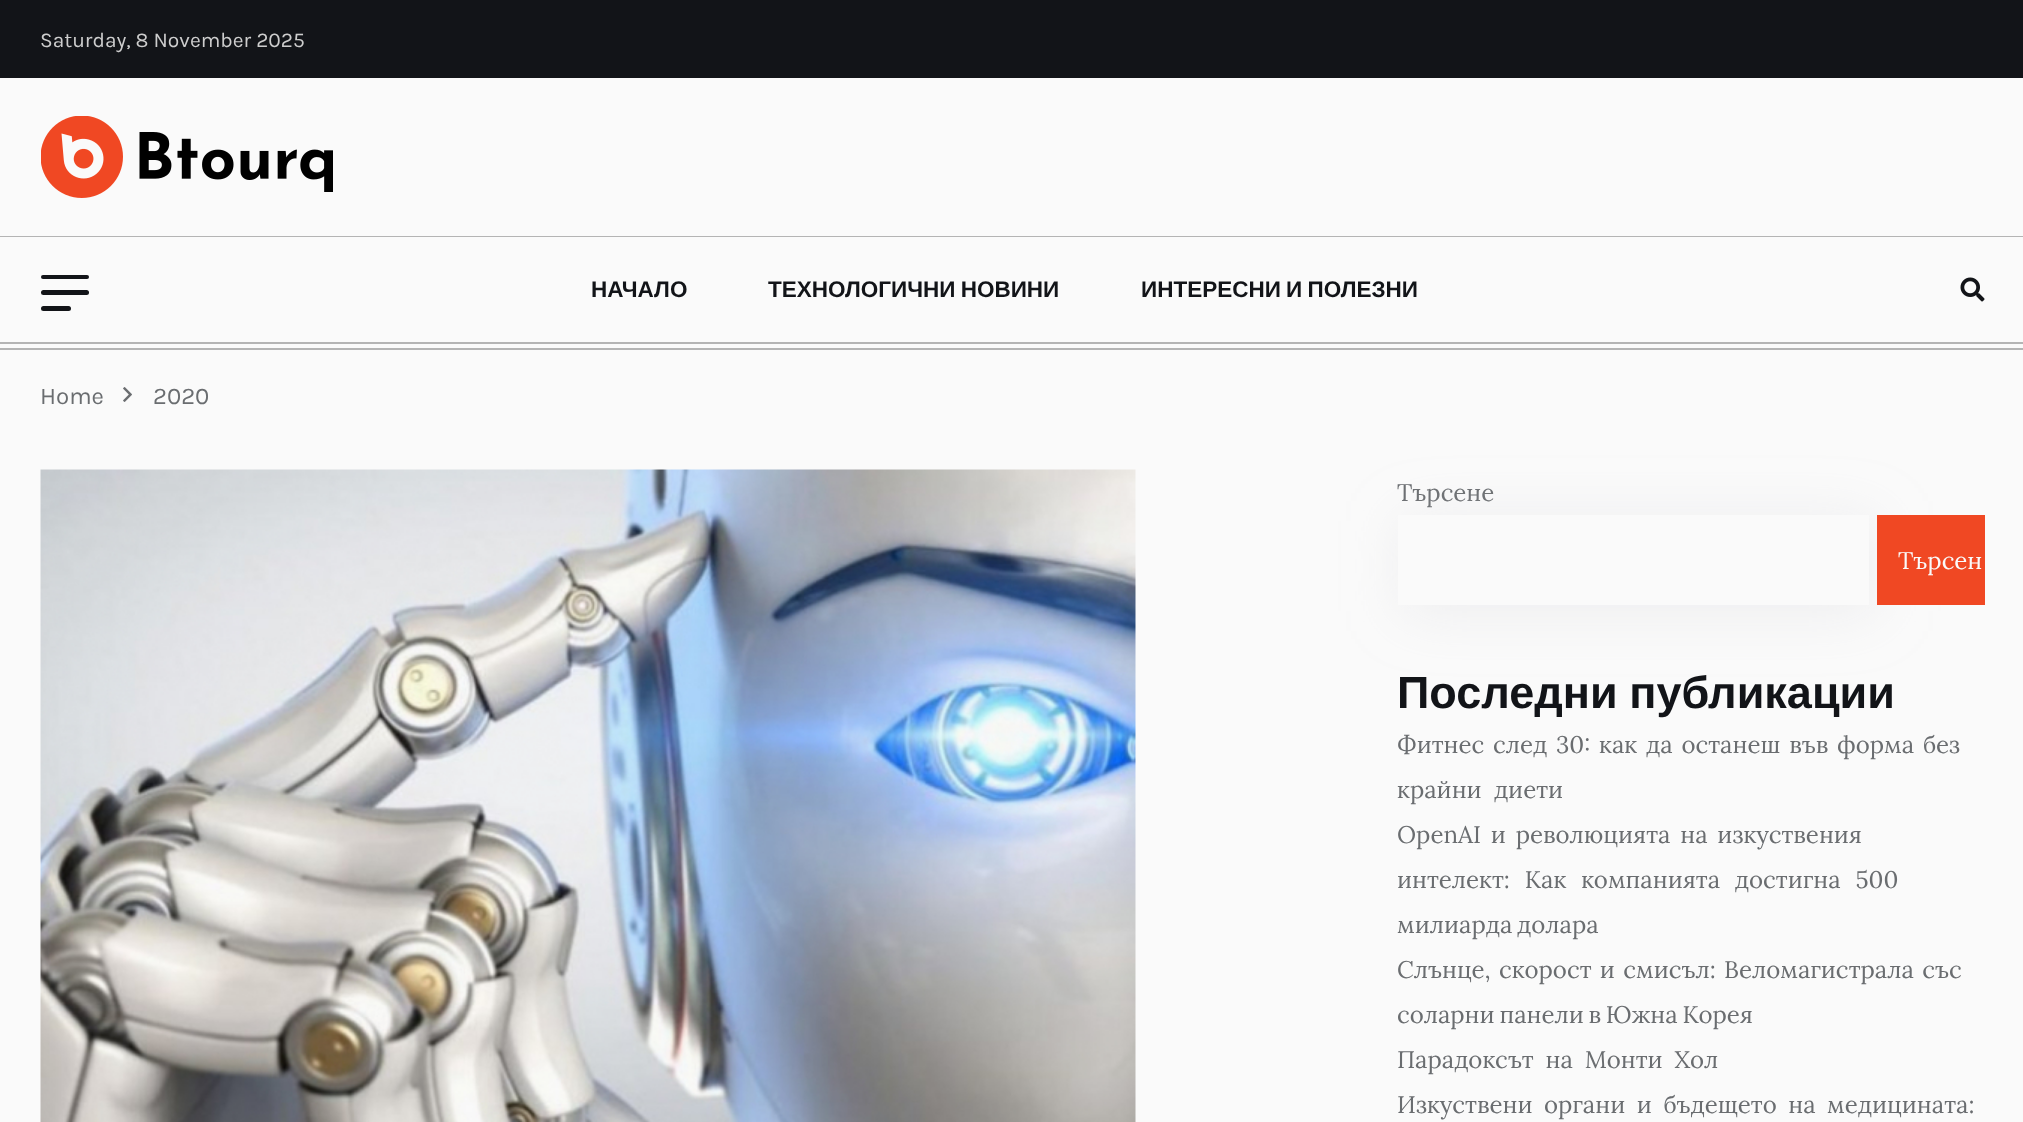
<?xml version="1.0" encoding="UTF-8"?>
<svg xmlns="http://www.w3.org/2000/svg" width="2023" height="1122">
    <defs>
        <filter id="blur1" x="-50%" y="-200%" width="200%" height="500%"><feGaussianBlur stdDeviation="30"/></filter>
    </defs>
    <rect width="100%" height="100%" fill="#FAFAFA"/>
    <rect x="0" y="0" width="2023" height="78" fill="#121418"/>
    <text x="40" y="47" font-family="Karla" font-size="21" fill="#CDCDCD">Saturday, 8 November 2025</text>
    <rect x="0" y="236" width="2023" height="1" fill="#B4B4B4"/>
    <image x="41" y="116" width="292" height="82" href="img_01.png"/>
    <rect x="0" y="342" width="2023" height="2" fill="#B4B4B4"/>
    <rect x="41" y="275" width="48" height="4" rx="2" fill="#121418"/>
    <rect x="41" y="290" width="48" height="5" rx="2.5" fill="#121418"/>
    <rect x="41" y="306" width="30" height="5" rx="2.5" fill="#121418"/>
    <text x="591" y="297" font-family="Liberation Sans" font-size="22.5" font-weight="700" fill="#121418">НАЧАЛО</text>
    <text x="768" y="297" word-spacing="-1" font-family="Liberation Sans" font-size="22.5" font-weight="700" fill="#121418">ТЕХНОЛОГИЧНИ НОВИНИ</text>
    <text x="1141" y="297" word-spacing="-1" font-family="Liberation Sans" font-size="22.5" font-weight="700" fill="#121418">ИНТЕРЕСНИ И ПОЛЕЗНИ</text>
    <image x="1960" y="277" width="25" height="25" href="img_02.png"/>
    <rect x="0" y="348" width="2023" height="2" fill="#B4B4B4"/>
    <text x="40" y="404" font-family="Karla" font-size="24" fill="#6A6D70">Home</text>
    <image x="123" y="387" width="9" height="15" href="img_03.png"/>
    <text x="153" y="404" font-family="Karla" font-size="24" fill="#6A6D70">2020</text>
    <image x="40" y="469" width="1096" height="653" href="img_04.png"/>
    <text x="1397" y="501" font-family="Lora" font-size="24" fill="#6A6D70">Търсене</text>
    <rect x="1404" y="521" width="471" height="90" fill="#D0D0D8" fill-opacity="0.32" filter="url(#blur1)"/>
    <rect x="1398" y="515" width="471" height="90" fill="#FAFAFA"/>
    <rect x="1877" y="515" width="108" height="90" fill="#F04823"/>
    <text x="1898" y="569" font-family="Lora" font-size="24" fill="#FAFAFA">Търсен</text>
    <text x="1397" y="708" word-spacing="-1" font-family="Liberation Sans" font-size="45" font-weight="700" fill="#121418">Последни публикации</text>
    <text font-family="Lora" font-size="24" fill="#6A6D70">
        <tspan x="1397" y="753" word-spacing="2.5">Фитнес след 30: как да останеш във форма без</tspan>
        <tspan x="1397" y="798" word-spacing="6">крайни диети</tspan>
        <tspan x="1397" y="843" word-spacing="3.5">OpenAI и революцията на изкуствения</tspan>
        <tspan x="1397" y="888" word-spacing="8.5">интелект: Как компанията достигна 500</tspan>
        <tspan x="1397" y="933" word-spacing="-1.5">милиарда долара</tspan>
        <tspan x="1397" y="978" word-spacing="2">Слънце, скорост и смисъл: Веломагистрала със</tspan>
        <tspan x="1397" y="1023" word-spacing="-1.5">соларни панели в Южна Корея</tspan>
        <tspan x="1397" y="1068" word-spacing="5.5">Парадоксът на Монти Хол</tspan>
        <tspan x="1397" y="1113" word-spacing="5.25">Изкуствени органи и бъдещето на медицината:</tspan>
    </text>
</svg>
